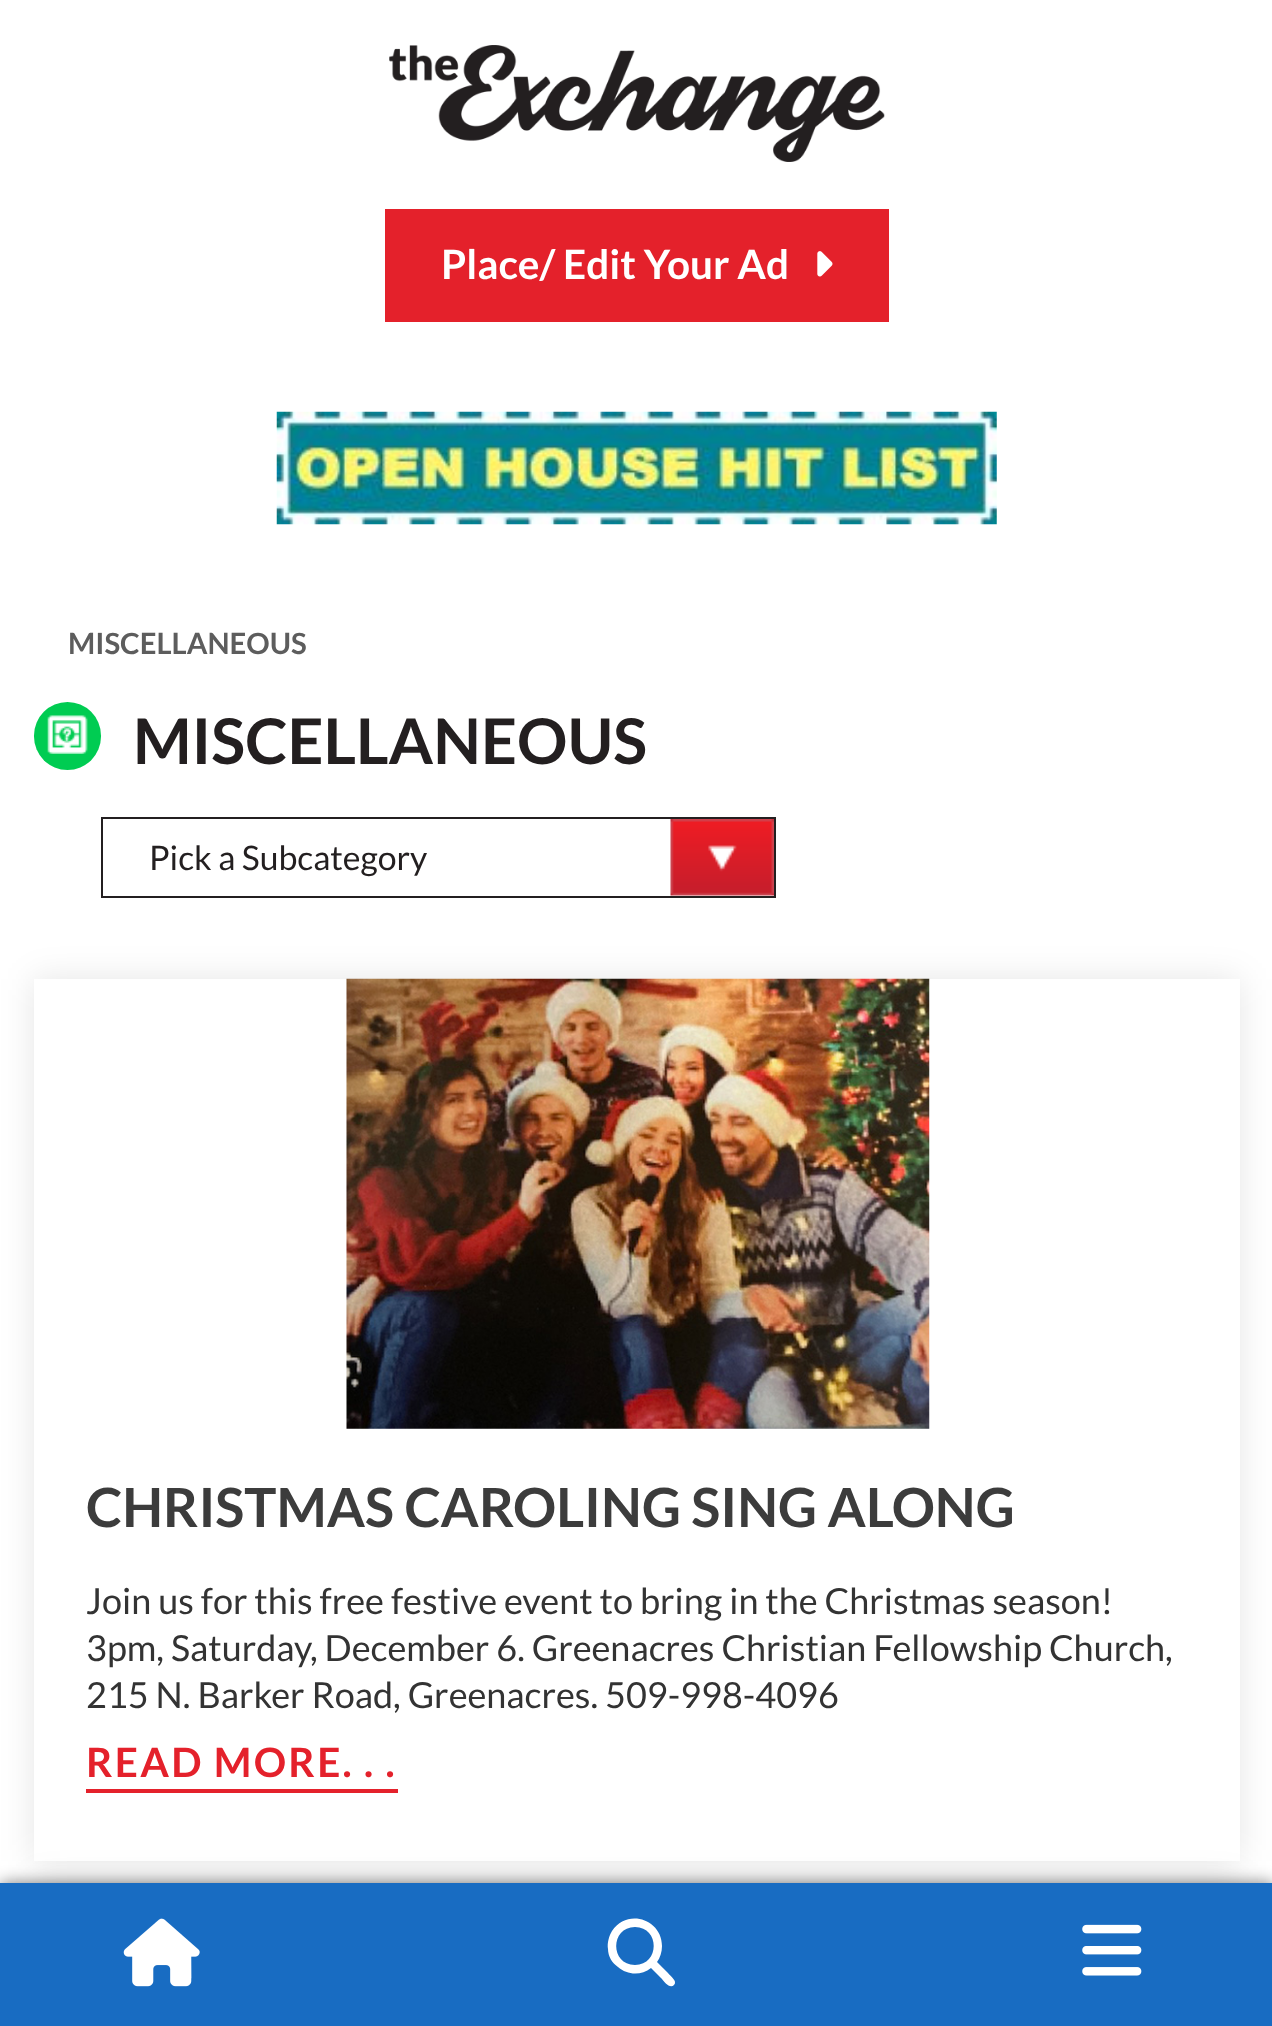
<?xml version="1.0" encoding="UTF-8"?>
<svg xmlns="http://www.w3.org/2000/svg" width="1272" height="2026">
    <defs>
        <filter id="blur1" x="-50%" y="-200%" width="200%" height="500%"><feGaussianBlur stdDeviation="17"/></filter>
        <filter id="blur2" x="-50%" y="-200%" width="200%" height="500%"><feGaussianBlur stdDeviation="8"/></filter>
    </defs>
    <rect width="100%" height="100%" fill="#FFFFFF"/>
    <image x="389" y="45" width="496" height="117" href="img_01.png"/>
    <rect x="385" y="209" width="504" height="113" fill="#E4212B"/>
    <text x="441" y="279" font-family="Lato" font-size="40.5" font-weight="700" fill="#FFFFFF">Place/ Edit Your Ad</text>
    <image x="817" y="251" width="16" height="26" href="img_02.png"/>
    <image x="276" y="411" width="721" height="114" href="img_03.png"/>
    <text x="68" y="654" font-family="Lato" font-size="29.25" font-weight="700" fill="#5D5D5D">MISCELLANEOUS</text>
    <rect x="34" y="702" width="67" height="68" rx="33.5" fill="#00CC52"/>
    <image x="47" y="715" width="41" height="39" href="img_04.png"/>
    <text x="133" y="764" font-family="Lato" font-size="63" font-weight="700" fill="#231F20">MISCELLANEOUS</text>
    <image x="670" y="819" width="104" height="77" href="img_05.png"/>
    <rect x="102" y="818" width="673" height="79" fill="none" stroke="#231F20" stroke-width="2"/>
    <text x="149" y="870" font-family="Lato" font-size="33.75" fill="#231F20">Pick a Subcategory</text>
    <rect x="34" y="979" width="1206" height="882" fill="#000000" fill-opacity="0.1" filter="url(#blur1)"/>
    <rect x="34" y="979" width="1206" height="882" fill="#FFFFFF"/>
    <image x="346" y="978" width="584" height="451" href="img_06.png"/>
    <text x="86" y="1527" font-family="Lato" font-size="54" font-weight="700" fill="#3C3C3C">CHRISTMAS CAROLING SING ALONG</text>
    <text font-family="Lato" font-size="36" fill="#333333">
        <tspan x="86" y="1614">Join us for this free festive event to bring in the Christmas season!</tspan>
        <tspan x="86" y="1661">3pm, Saturday, December 6. Greenacres Christian Fellowship Church,</tspan>
        <tspan x="86" y="1708">215 N. Barker Road, Greenacres. 509-998-4096</tspan>
    </text>
    <rect x="86" y="1789" width="312" height="4" fill="#E4212B"/>
    <text x="86" y="1777" font-family="Lato" font-size="40.5" font-weight="700" letter-spacing="2.25" fill="#E4212B">READ MORE. . .</text>
    <rect x="34" y="1883" width="1206" height="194" fill="#000000" fill-opacity="0.1" filter="url(#blur1)"/>
    <rect x="0" y="1883" width="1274" height="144" fill="#000000" fill-opacity="0.5" filter="url(#blur2)"/>
    <rect x="0" y="1883" width="1272" height="143" fill="#186CC2"/>
    <image x="123" y="1918" width="77" height="69" href="img_07.png"/>
    <path d="M 662 1946 C 662 1952 660 1958 657 1962 L 668 1973 C 670 1976 678 1981 674 1985 C 670 1989 664 1982 662 1979 L 651 1968 C 641 1976 627 1975 618 1967 C 612 1963 608 1956 608 1949 C 607 1943 609 1936 612 1931 C 627 1908 662 1919 662 1946 Z M 635 1965 C 660 1965 660 1927 635 1927 C 610 1927 610 1965 635 1965 Z" fill="#FFFFFF"/>
    <image x="1082" y="1924" width="60" height="52" href="img_08.png"/>
</svg>
